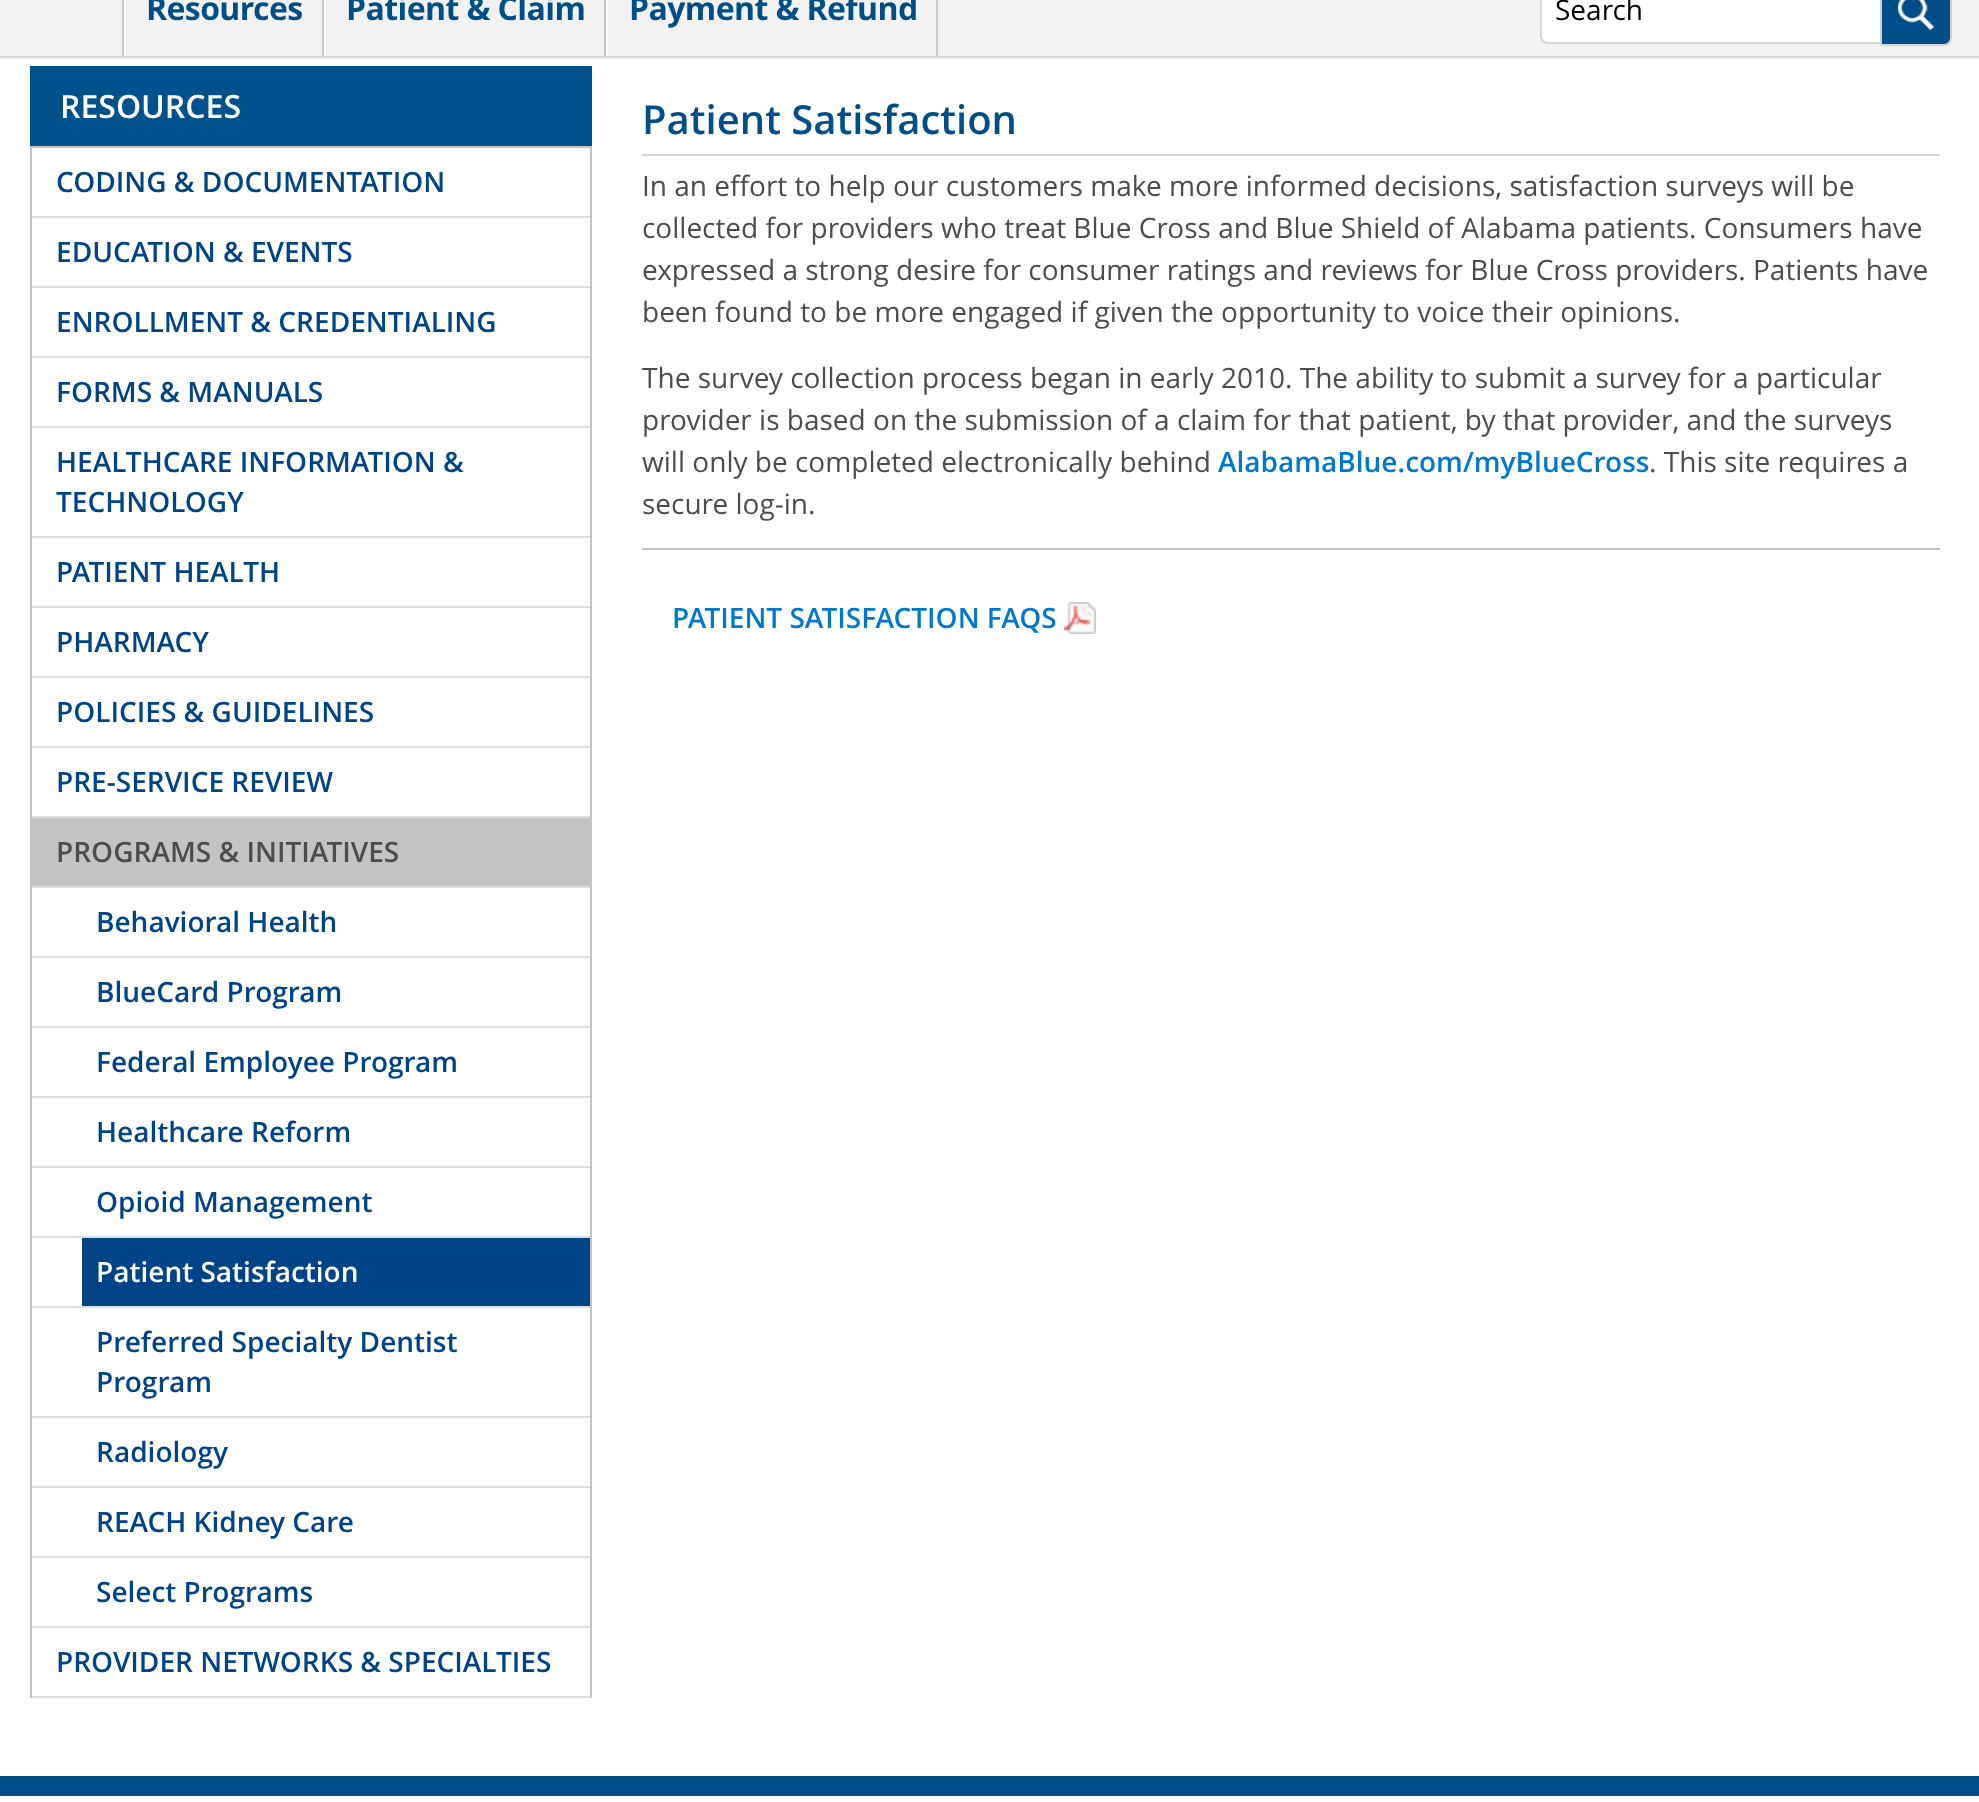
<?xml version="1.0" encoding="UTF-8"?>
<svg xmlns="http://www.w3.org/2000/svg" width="1979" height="1802">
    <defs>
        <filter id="blur1" x="-50%" y="-200%" width="200%" height="500%"><feGaussianBlur stdDeviation="1"/></filter>
    </defs>
    <rect width="100%" height="100%" fill="#FFFFFF"/>
    <rect x="-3" y="-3" width="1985" height="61" fill="#000000" fill-opacity="0.2" filter="url(#blur1)"/>
    <rect x="0" y="0" width="1979" height="56" fill="#F2F2F2"/>
    <rect x="122" y="0" width="2" height="56" fill="#C7C7C7"/>
    <rect x="322" y="0" width="2" height="56" fill="#C7C7C7"/>
    <rect x="124" y="0" width="2" height="56" fill="#FFFFFF"/>
    <text x="146" y="20" font-family="Open Sans" font-size="32" font-weight="700" letter-spacing="-0.6" fill="#004E87">Resources</text>
    <rect x="604" y="0" width="2" height="56" fill="#C7C7C7"/>
    <rect x="324" y="0" width="2" height="56" fill="#FFFFFF"/>
    <text x="346" y="20" font-family="Open Sans" font-size="32" font-weight="700" letter-spacing="-0.6" fill="#004E87">Patient &amp; Claim</text>
    <rect x="936" y="0" width="2" height="56" fill="#C7C7C7"/>
    <rect x="606" y="0" width="2" height="56" fill="#FFFFFF"/>
    <text x="629" y="20" font-family="Open Sans" font-size="32" font-weight="700" letter-spacing="-0.6" fill="#004E87">Payment &amp; Refund</text>
    <path d="M 1548 -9 H 1881 V 43 H 1548 C 1544 43 1541 40 1541 36 V -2 C 1541 -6 1544 -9 1548 -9 Z" fill="#FFFFFF" stroke="#D8D5D5" stroke-width="2"/>
    <text x="1555" y="20" font-family="Open Sans" font-size="28" fill="#000000">Search</text>
    <path d="M 1881 -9 H 1944 C 1948 -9 1951 -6 1951 -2 V 38 C 1951 42 1948 45 1944 45 H 1881 Z" fill="#004E87" stroke="#D4D4D4" stroke-width="2"/>
    <image x="1898" y="0" width="36" height="30" href="img_01.png"/>
    <rect x="30" y="66" width="562" height="80" fill="#01518C"/>
    <text x="60" y="118" font-family="Open Sans" font-size="32" font-weight="600" fill="#FFFFFF">RESOURCES</text>
    <rect x="30" y="146" width="562" height="2" fill="#C2C3C2"/>
    <rect x="590" y="146" width="2" height="1552" fill="#C2C3C2"/>
    <rect x="30" y="146" width="2" height="1552" fill="#C2C3C2"/>
    <rect x="32" y="216" width="558" height="2" fill="#DBDFE2"/>
    <text x="56" y="192" font-family="Open Sans" font-size="28" font-weight="600" fill="#004387">CODING &amp; DOCUMENTATION</text>
    <rect x="32" y="286" width="558" height="2" fill="#DBDFE2"/>
    <text x="56" y="262" font-family="Open Sans" font-size="28" font-weight="600" fill="#004387">EDUCATION &amp; EVENTS</text>
    <rect x="32" y="356" width="558" height="2" fill="#DBDFE2"/>
    <text x="56" y="332" font-family="Open Sans" font-size="28" font-weight="600" fill="#004387">ENROLLMENT &amp; CREDENTIALING</text>
    <rect x="32" y="426" width="558" height="2" fill="#DBDFE2"/>
    <text x="56" y="402" font-family="Open Sans" font-size="28" font-weight="600" fill="#004387">FORMS &amp; MANUALS</text>
    <rect x="32" y="536" width="558" height="2" fill="#DBDFE2"/>
    <text font-family="Open Sans" font-size="28" font-weight="600" fill="#004387">
        <tspan x="56" y="472">HEALTHCARE INFORMATION &amp;</tspan>
        <tspan x="56" y="512">TECHNOLOGY</tspan>
    </text>
    <rect x="32" y="606" width="558" height="2" fill="#DBDFE2"/>
    <text x="56" y="582" font-family="Open Sans" font-size="28" font-weight="600" fill="#004387">PATIENT HEALTH</text>
    <rect x="32" y="676" width="558" height="2" fill="#DBDFE2"/>
    <text x="56" y="652" font-family="Open Sans" font-size="28" font-weight="600" fill="#004387">PHARMACY</text>
    <rect x="32" y="746" width="558" height="2" fill="#DBDFE2"/>
    <text x="56" y="722" font-family="Open Sans" font-size="28" font-weight="600" fill="#004387">POLICIES &amp; GUIDELINES</text>
    <rect x="32" y="816" width="558" height="2" fill="#DBDFE2"/>
    <text x="56" y="792" font-family="Open Sans" font-size="28" font-weight="600" fill="#004387">PRE-SERVICE REVIEW</text>
    <rect x="32" y="886" width="558" height="2" fill="#DBDFE2"/>
    <rect x="32" y="818" width="558" height="68" fill="#C2C3C2"/>
    <text x="56" y="862" font-family="Open Sans" font-size="28" font-weight="600" fill="#4C4C4C">PROGRAMS &amp; INITIATIVES</text>
    <rect x="32" y="956" width="558" height="2" fill="#DBDFE2"/>
    <text x="96" y="932" font-family="Open Sans" font-size="28" font-weight="600" fill="#004387">Behavioral Health</text>
    <rect x="32" y="1026" width="558" height="2" fill="#DBDFE2"/>
    <text x="96" y="1002" font-family="Open Sans" font-size="28" font-weight="600" fill="#004387">BlueCard Program</text>
    <rect x="32" y="1096" width="558" height="2" fill="#DBDFE2"/>
    <text x="96" y="1072" font-family="Open Sans" font-size="28" font-weight="600" fill="#004387">Federal Employee Program</text>
    <rect x="32" y="1166" width="558" height="2" fill="#DBDFE2"/>
    <text x="96" y="1142" font-family="Open Sans" font-size="28" font-weight="600" fill="#004387">Healthcare Reform</text>
    <rect x="32" y="1236" width="558" height="2" fill="#DBDFE2"/>
    <text x="96" y="1212" font-family="Open Sans" font-size="28" font-weight="600" fill="#004387">Opioid Management</text>
    <rect x="32" y="1306" width="558" height="2" fill="#DBDFE2"/>
    <rect x="82" y="1238" width="508" height="68" fill="#004387"/>
    <text x="96" y="1282" font-family="Open Sans" font-size="28" font-weight="600" fill="#FFFFFF">Patient Satisfaction</text>
    <rect x="32" y="1416" width="558" height="2" fill="#DBDFE2"/>
    <text font-family="Open Sans" font-size="28" font-weight="600" fill="#004387">
        <tspan x="96" y="1352">Preferred Specialty Dentist</tspan>
        <tspan x="96" y="1392">Program</tspan>
    </text>
    <rect x="32" y="1486" width="558" height="2" fill="#DBDFE2"/>
    <text x="96" y="1462" font-family="Open Sans" font-size="28" font-weight="600" fill="#004387">Radiology</text>
    <rect x="32" y="1556" width="558" height="2" fill="#DBDFE2"/>
    <text x="96" y="1532" font-family="Open Sans" font-size="28" font-weight="600" fill="#004387">REACH Kidney Care</text>
    <rect x="32" y="1626" width="558" height="2" fill="#DBDFE2"/>
    <text x="96" y="1602" font-family="Open Sans" font-size="28" font-weight="600" fill="#004387">Select Programs</text>
    <rect x="32" y="1696" width="558" height="2" fill="#DBDFE2"/>
    <text x="56" y="1672" font-family="Open Sans" font-size="28" font-weight="600" fill="#004387">PROVIDER NETWORKS &amp; SPECIALTIES</text>
    <rect x="642" y="154" width="1298" height="2" fill="#D4D4D4"/>
    <text x="642" y="134" font-family="Open Sans" font-size="40" font-weight="600" fill="#004E87">Patient Satisfaction</text>
    <text font-family="Open Sans" font-size="28" fill="#4C4C4C">
        <tspan x="642" y="196">In an effort to help our customers make more informed decisions, satisfaction surveys will be</tspan>
        <tspan x="642" y="238">collected for providers who treat Blue Cross and Blue Shield of Alabama patients. Consumers have</tspan>
        <tspan x="642" y="280">expressed a strong desire for consumer ratings and reviews for Blue Cross providers. Patients have</tspan>
        <tspan x="642" y="322">been found to be more engaged if given the opportunity to voice their opinions.</tspan>
    </text>
    <text font-family="Open Sans" font-size="28" fill="#4C4C4C">
        <tspan x="642" y="388">The survey collection process began in early 2010. The ability to submit a survey for a particular</tspan>
        <tspan x="642" y="430">provider is based on the submission of a claim for that patient, by that provider, and the surveys</tspan>
        <tspan x="642" y="472">will only be completed electronically behind</tspan>
    </text>
    <text x="1218" y="472" font-family="Open Sans" font-size="28" font-weight="600" fill="#0078CC">AlabamaBlue.com/myBlueCross</text>
    <text x="1649" y="472" font-family="Open Sans" font-size="28" fill="#4C4C4C">. This site requires a</text>
    <text x="642" y="514" font-family="Open Sans" font-size="28" fill="#4C4C4C">secure log-in.</text>
    <rect x="642" y="548" width="1298" height="2" fill="#C3C2C3"/>
    <text x="672" y="628" font-family="Open Sans" font-size="28" font-weight="600" fill="#0078CC">PATIENT SATISFACTION FAQS</text>
    <image x="1064" y="602" width="32" height="32" href="img_02.png"/>
    <rect x="0" y="1776" width="1979" height="20" fill="#004E87"/>
</svg>
